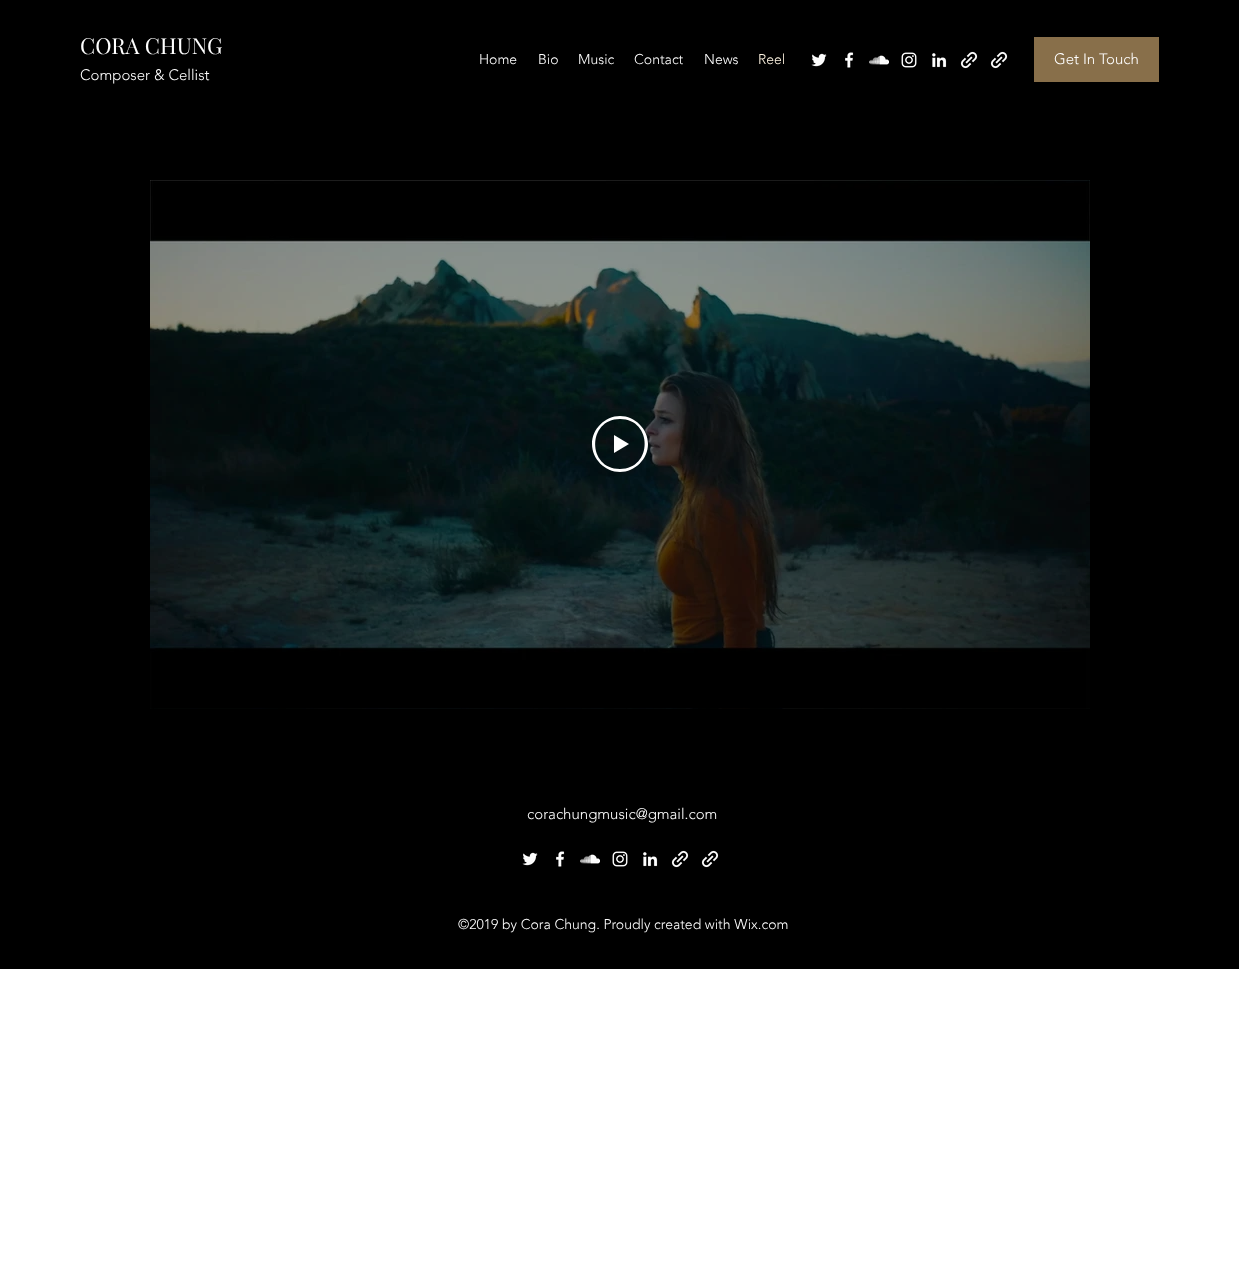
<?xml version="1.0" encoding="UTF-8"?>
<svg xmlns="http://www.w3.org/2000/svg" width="1239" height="1288">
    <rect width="100%" height="100%" fill="#FFFFFF"/>
    <rect x="0" y="0" width="1239" height="969" fill="#000000"/>
    <image x="150" y="180" width="940" height="529" href="img_01.png"/>
    <image x="150" y="240" width="940" height="409" href="img_02.png"/>
    <path d="M 620 469 C 653 469 653 419 620 419 C 587 419 587 469 620 469 Z M 620 472 C 605 472 592 459 592 444 C 592 429 605 416 620 416 C 635 416 648 429 648 444 C 648 459 635 472 620 472 Z" fill="#FFFFFF" fill-rule="evenodd"/>
    <path d="M 629 444 L 614 453 V 435 Z" fill="#FFFFFF" fill-rule="evenodd"/>
    <text x="80" y="54" font-family="Playfair Display" font-size="22" fill="#FFFFFF">CORA CHUNG</text>
    <text x="80" y="80" font-family="'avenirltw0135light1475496'" font-size="15" font-weight="300" fill="#FFFFFF">Composer &amp; Cellist</text>
    <text x="479" y="64" font-family="'avenirltw0135light1475496'" font-size="14" font-weight="300" fill="#FFFFFF">Home</text>
    <text x="538" y="64" font-family="'avenirltw0135light1475496'" font-size="14" font-weight="300" fill="#FFFFFF">Bio</text>
    <text x="578" y="64" font-family="'avenirltw0135light1475496'" font-size="14" font-weight="300" fill="#FFFFFF">Music</text>
    <text x="634" y="64" font-family="'avenirltw0135light1475496'" font-size="14" font-weight="300" fill="#FFFFFF">Contact</text>
    <text x="704" y="64" font-family="'avenirltw0135light1475496'" font-size="14" font-weight="300" fill="#FFFFFF">News</text>
    <text x="758" y="64" font-family="'avenirltw0135light1475496'" font-size="14" font-weight="300" fill="#FFF5E2">Reel</text>
    <image x="811" y="53" width="16" height="14" href="img_03.png"/>
    <image x="845" y="52" width="9" height="16" href="img_04.png"/>
    <image x="869" y="55" width="20" height="10" href="img_05.png"/>
    <image x="901" y="52" width="16" height="16" href="img_06.png"/>
    <image x="932" y="53" width="15" height="15" href="img_07.png"/>
    <image x="960" y="51" width="18" height="18" href="img_08.png"/>
    <image x="990" y="51" width="18" height="18" href="img_08.png"/>
    <rect x="1034" y="37" width="125" height="45" fill="#886F4A"/>
    <text x="1054" y="64" font-family="'avenirltw0135light1475496'" font-size="15" font-weight="300" fill="#FFFFFF">Get In Touch</text>
    <text x="527" y="819" font-family="'avenirltw0135light1475496'" font-size="15" font-weight="300" fill="#FFFFFF">corachungmusic@gmail.com</text>
    <image x="522" y="852" width="16" height="14" href="img_03.png"/>
    <image x="556" y="851" width="9" height="16" href="img_04.png"/>
    <image x="580" y="854" width="20" height="10" href="img_05.png"/>
    <image x="612" y="851" width="16" height="16" href="img_06.png"/>
    <image x="643" y="852" width="15" height="15" href="img_07.png"/>
    <image x="671" y="850" width="18" height="18" href="img_08.png"/>
    <image x="701" y="850" width="18" height="18" href="img_08.png"/>
    <text x="458" y="929" font-family="'avenirltw0135light1475496'" font-size="14" font-weight="300" fill="#FFFFFF">©2019 by Cora Chung. Proudly created with Wix.com</text>
</svg>
